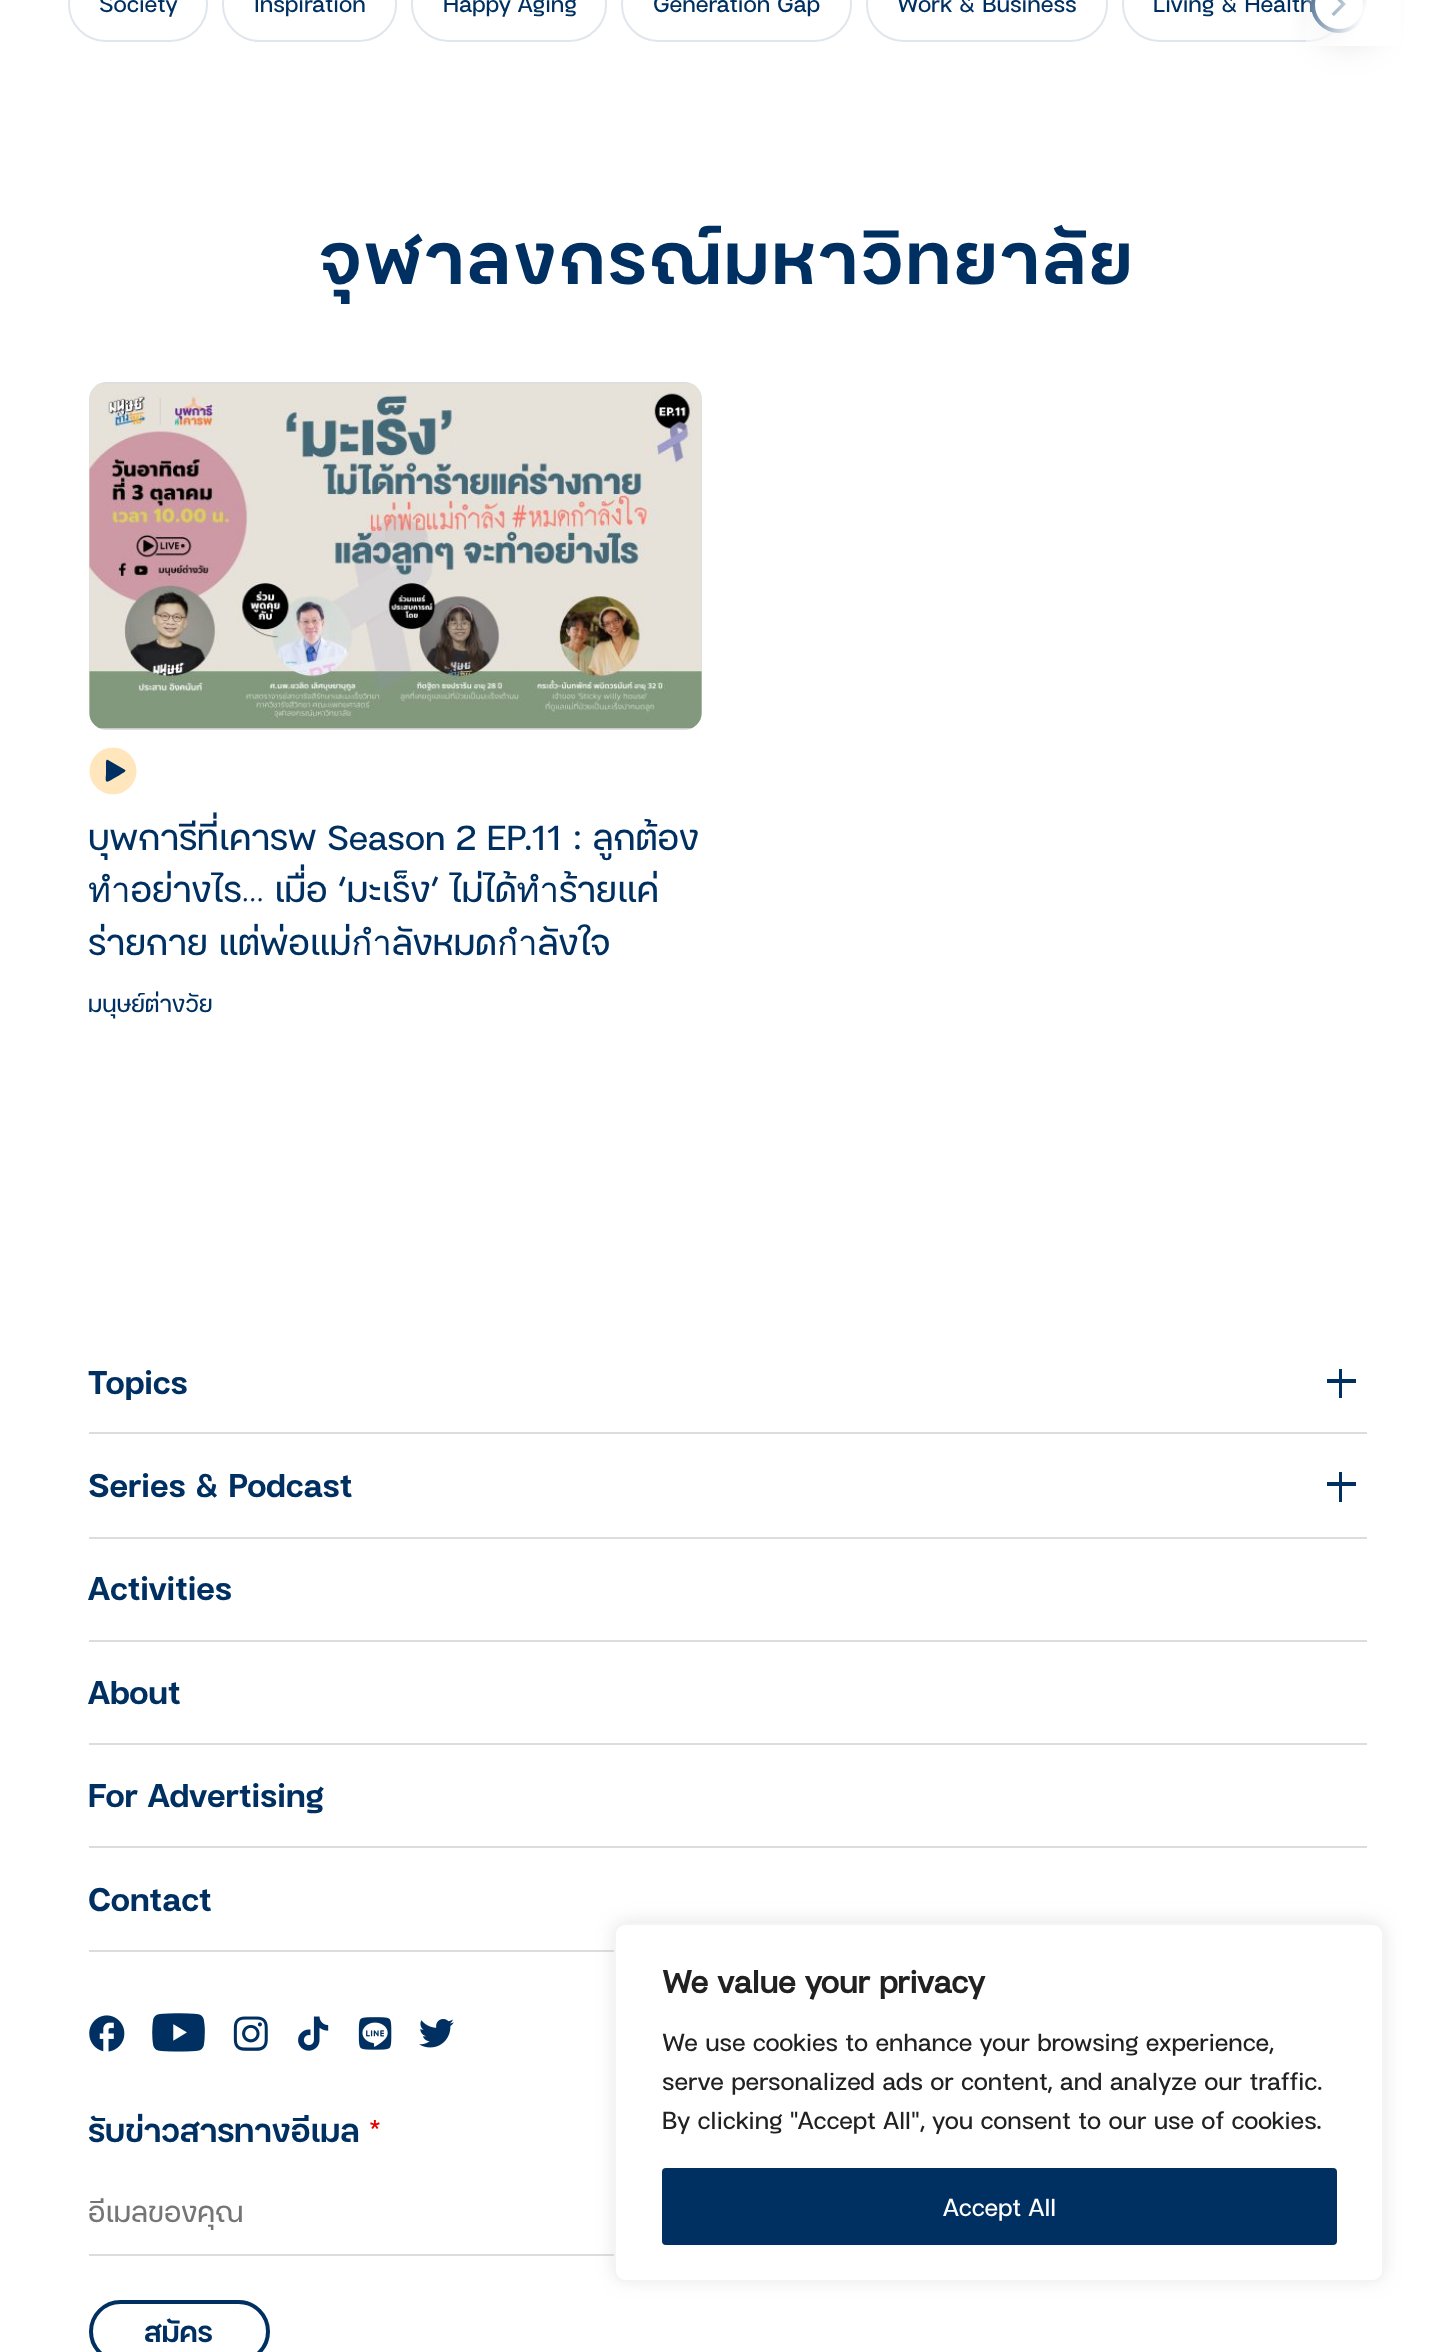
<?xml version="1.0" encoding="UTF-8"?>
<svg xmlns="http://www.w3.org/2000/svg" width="1453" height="2352">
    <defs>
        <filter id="blur1" x="-50%" y="-200%" width="200%" height="500%"><feGaussianBlur stdDeviation="19"/></filter>
        <linearGradient id="g1" gradientUnits="userSpaceOnUse" x1="1417" y1="28" x2="1299" y2="-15"><stop offset="0.43" stop-color="#FFFFFF"/><stop offset="1" stop-color="#FFFFFF" stop-opacity="0.16"/></linearGradient>
        <clipPath id="clip1"><rect x="89" y="812" width="613" height="156"/></clipPath>
        <clipPath id="clip2"><rect x="89" y="2191" width="1278" height="42"/></clipPath>
        <filter id="blur2" x="-50%" y="-200%" width="200%" height="500%"><feGaussianBlur stdDeviation="9"/></filter>
    </defs>
    <rect width="100%" height="100%" fill="#FFFFFF"/>
    <rect x="69" y="-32" width="138" height="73" rx="36.5" fill="none" stroke="#E0E6EC" stroke-width="2"/>
    <text x="99" y="12" font-family="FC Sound" font-size="23" fill="#003061">Society</text>
    <rect x="223" y="-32" width="173" height="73" rx="36.5" fill="none" stroke="#E0E6EC" stroke-width="2"/>
    <text x="254" y="12" font-family="FC Sound" font-size="23" fill="#003061">Inspiration</text>
    <rect x="412" y="-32" width="194" height="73" rx="36.5" fill="none" stroke="#E0E6EC" stroke-width="2"/>
    <text x="443" y="12" font-family="FC Sound" font-size="23" fill="#003061">Happy Aging</text>
    <rect x="622" y="-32" width="229" height="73" rx="36.5" fill="none" stroke="#E0E6EC" stroke-width="2"/>
    <text x="653" y="12" font-family="FC Sound" font-size="23" fill="#003061">Generation Gap</text>
    <rect x="867" y="-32" width="240" height="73" rx="36.5" fill="none" stroke="#E0E6EC" stroke-width="2"/>
    <text x="897" y="12" font-family="FC Sound" font-size="23" fill="#003061">Work &amp; Business</text>
    <rect x="1123" y="-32" width="222" height="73" rx="36.5" fill="none" stroke="#E0E6EC" stroke-width="2"/>
    <text x="1153" y="12" font-family="FC Sound" font-size="23" fill="#003061">Living &amp; Health</text>
    <rect x="1320" y="-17" width="56" height="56" rx="28" fill="#000000" fill-opacity="0.18" filter="url(#blur1)"/>
    <circle cx="1339" cy="5" r="26" fill="#FFFFFF" stroke="#003061" stroke-width="4"/>
    <image x="1331" y="0" width="15" height="17" href="img_01.png"/>
    <rect x="1306" y="0" width="95" height="46" fill="url(#g1)"/>
    <text x="319" y="284" font-family="FC Sound" font-size="70" font-weight="600" letter-spacing="3.5" fill="#003061">จุฬาลงกรณ์มหาวิทยาลัย</text>
    <rect x="89" y="382" width="613" height="348" rx="18" fill="#DDDDDD"/>
    <image x="89" y="383" width="613" height="346" href="img_02.png"/>
    <circle cx="113" cy="771" r="23.5" fill="#FFE6BD"/>
    <path d="M 124.5 769.5 C 127.5 771 123 773 119 775.5 L 113.5 778.5 C 112.5 779 108 782.5 106.5 781.5 C 105 781 106 775.5 106 774 V 767.5 C 106 763.5 105.5 758.5 108 760 Z" fill="#003061"/>
    <g clip-path="url(#clip1)">
        <text font-family="FC Sound" font-size="34.75" fill="#003061">
            <tspan x="88" y="850">บุพการีที่เคารพ Season 2 EP.11 : ลูกต้อง</tspan>
            <tspan x="88" y="902">ทำอย่างไร… เมื่อ ‘มะเร็ง’ ไม่ได้ทำร้ายแค่</tspan>
            <tspan x="88" y="955">ร่ายกาย แต่พ่อแม่กำลังหมดกำลังใจ</tspan>
        </text>
    </g>
    <text x="88" y="1012" font-family="FC Sound" font-size="23" fill="#003061">มนุษย์ต่างวัย</text>
    <rect x="89" y="1432" width="1278" height="2" fill="#DDDDDD"/>
    <text x="88" y="1394" font-family="FC Sound" font-size="32.75" font-weight="600" fill="#003061">Topics</text>
    <rect x="1327" y="1379" width="29" height="4" fill="#003061"/>
    <rect x="1339" y="1369" width="3" height="29" fill="#003061"/>
    <rect x="89" y="1537" width="1278" height="2" fill="#DDDDDD"/>
    <text x="88" y="1497" font-family="FC Sound" font-size="32.75" font-weight="600" fill="#003061">Series &amp; Podcast</text>
    <rect x="1327" y="1482" width="29" height="4" fill="#003061"/>
    <rect x="1339" y="1472" width="3" height="30" fill="#003061"/>
    <rect x="89" y="1640" width="1278" height="2" fill="#DDDDDD"/>
    <text x="88" y="1600" font-family="FC Sound" font-size="32.75" font-weight="600" fill="#003061">Activities</text>
    <rect x="89" y="1743" width="1278" height="2" fill="#DDDDDD"/>
    <text x="88" y="1704" font-family="FC Sound" font-size="32.75" font-weight="600" fill="#003061">About</text>
    <rect x="89" y="1846" width="1278" height="2" fill="#DDDDDD"/>
    <text x="88" y="1807" font-family="FC Sound" font-size="32.75" font-weight="600" fill="#003061">For Advertising</text>
    <rect x="89" y="1950" width="525" height="2" fill="#DDDDDD"/>
    <text x="88" y="1911" font-family="FC Sound" font-size="32.75" font-weight="600" fill="#003061">Contact</text>
    <image x="89" y="2015" width="36" height="37" href="img_03.png"/>
    <image x="152" y="2013" width="53" height="39" href="img_04.png"/>
    <image x="233" y="2016" width="35" height="35" href="img_05.png"/>
    <image x="298" y="2016" width="31" height="35" href="img_06.png"/>
    <image x="358" y="2017" width="34" height="33" href="img_07.png"/>
    <image x="419" y="2019" width="35" height="29" href="img_08.png"/>
    <text x="88" y="2142" font-family="FC Sound" font-size="31.5" font-weight="600" fill="#003061">รับข่าวสารทางอีเมล</text>
    <text x="369" y="2142" font-family="FC Sound" font-size="31.5" fill="#E80000">*</text>
    <rect x="89" y="2254" width="525" height="2" fill="#DDDDDD"/>
    <g clip-path="url(#clip2)">
        <text x="88" y="2222" font-family="FC Sound" font-size="28" fill="#757575">อีเมลของคุณ</text>
    </g>
    <rect x="91" y="2302" width="177" height="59" rx="29.5" fill="none" stroke="#003061" stroke-width="4"/>
    <text x="144" y="2342" font-family="FC Sound" font-size="28" font-weight="600" fill="#003061">สมัคร</text>
    <rect x="614" y="1922" width="770" height="358" rx="11" fill="#ACABAB" fill-opacity="0.3" filter="url(#blur2)"/>
    <rect x="615" y="1924" width="768" height="357" rx="10" fill="#FFFFFF" stroke="#F4F4F4" stroke-width="2"/>
    <text x="662" y="1993" font-family="FC Sound" font-size="31.5" font-weight="700" fill="#212121">We value your privacy</text>
    <text font-family="FC Sound" font-size="24.5" fill="#212121">
        <tspan x="662" y="2051">We use cookies to enhance your browsing experience,</tspan>
        <tspan x="662" y="2090">serve personalized ads or content, and analyze our traffic.</tspan>
        <tspan x="662" y="2129">By clicking "Accept All", you consent to our use of cookies.</tspan>
    </text>
    <rect x="664" y="2170" width="671" height="73" rx="2" fill="#003061" stroke="#003061" stroke-width="4"/>
    <text x="943" y="2216" font-family="FC Sound" font-size="24.5" fill="#FFFFFF">Accept All</text>
</svg>
